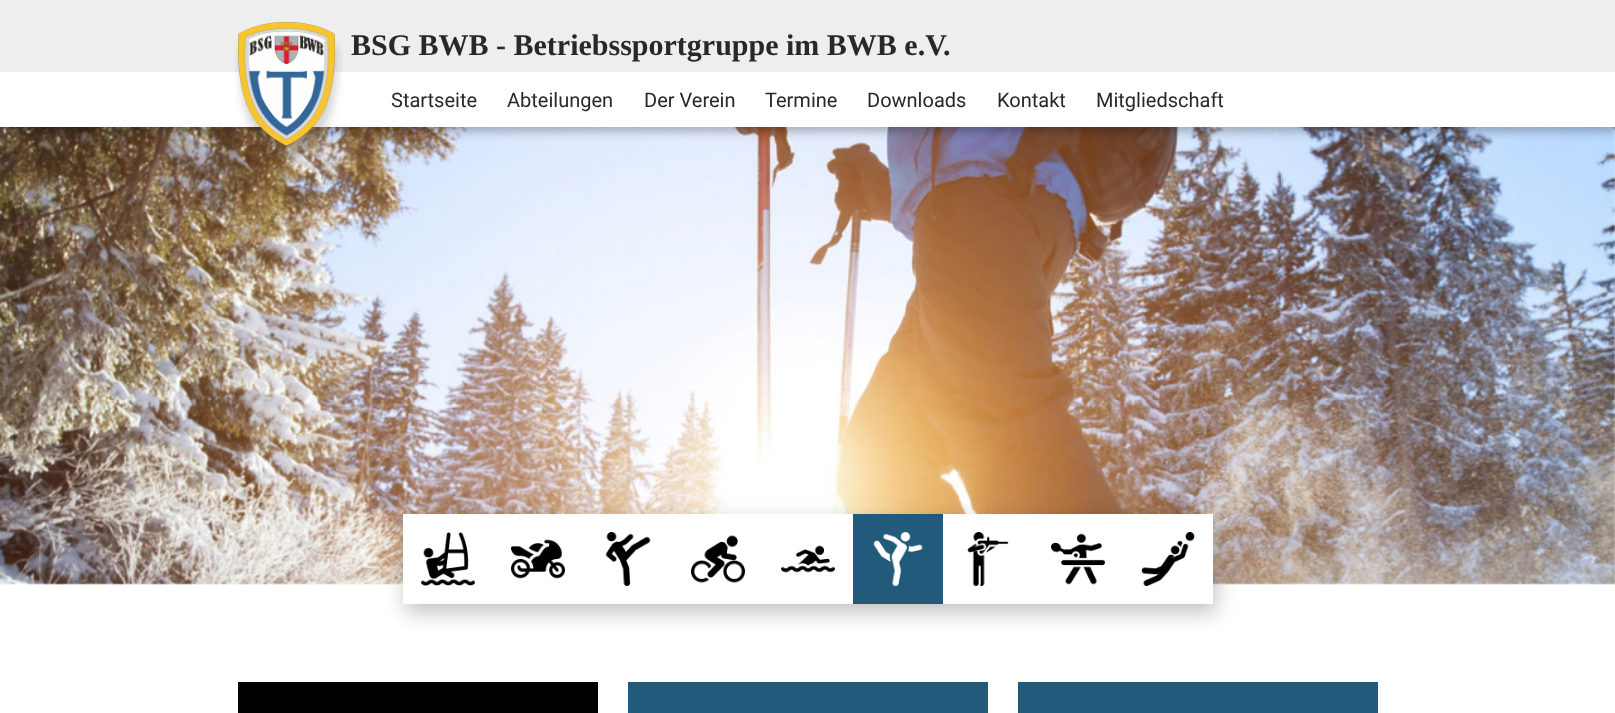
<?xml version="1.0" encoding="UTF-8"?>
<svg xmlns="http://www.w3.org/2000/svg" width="1615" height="713">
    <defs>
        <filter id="blur1" x="-50%" y="-200%" width="200%" height="500%"><feGaussianBlur stdDeviation="5"/></filter>
        <filter id="blur2" x="-50%" y="-200%" width="200%" height="500%"><feGaussianBlur stdDeviation="10.5"/></filter>
    </defs>
    <rect width="100%" height="100%" fill="#FFFFFF"/>
    <image x="0" y="127" width="1615" height="458" href="img_02.png"/>
    <rect x="0" y="77" width="1615" height="55" fill="#000000" fill-opacity="0.25" filter="url(#blur1)"/>
    <rect x="0" y="0" width="1615" height="72" fill="#EEEEEE"/>
    <rect x="0" y="72" width="1615" height="55" fill="#FFFFFF"/>
    <image x="234" y="22" width="109" height="141" href="img_01.png"/>
    <text x="351" y="55" font-family="Liberation Serif" font-size="30" font-weight="700" fill="#282828">BSG BWB - Betriebssportgruppe im BWB e.V.</text>
    <text x="391" y="107" font-family="Roboto" font-size="20" fill="#282828">Startseite</text>
    <text x="507" y="107" font-family="Roboto" font-size="20" fill="#282828">Abteilungen</text>
    <text x="644" y="107" font-family="Roboto" font-size="20" fill="#282828">Der Verein</text>
    <text x="765" y="107" font-family="Roboto" font-size="20" fill="#282828">Termine</text>
    <text x="867" y="107" font-family="Roboto" font-size="20" fill="#282828">Downloads</text>
    <text x="997" y="107" font-family="Roboto" font-size="20" fill="#282828">Kontakt</text>
    <text x="1096" y="107" font-family="Roboto" font-size="20" fill="#282828">Mitgliedschaft</text>
    <rect x="406" y="522" width="810" height="90" fill="#000000" fill-opacity="0.25" filter="url(#blur2)"/>
    <rect x="403" y="514" width="810" height="90" fill="#FFFFFF"/>
    <image x="421" y="532" width="54" height="54" href="img_03.png"/>
    <image x="511" y="539" width="54" height="40" href="img_04.png"/>
    <image x="605" y="532" width="46" height="54" href="img_05.png"/>
    <image x="691" y="535" width="54" height="48" href="img_06.png"/>
    <image x="781" y="545" width="54" height="28" href="img_07.png"/>
    <rect x="853" y="514" width="90" height="90" fill="#215A7B"/>
    <image x="873" y="532" width="50" height="54" href="img_08.png"/>
    <image x="967" y="532" width="42" height="54" href="img_09.png"/>
    <image x="1051" y="533" width="54" height="52" href="img_10.png"/>
    <image x="1141" y="532" width="54" height="54" href="img_11.png"/>
    <rect x="238" y="682" width="360" height="31" fill="#000000"/>
    <rect x="628" y="682" width="360" height="31" fill="#215A7B"/>
    <rect x="1018" y="682" width="360" height="31" fill="#215A7B"/>
</svg>
